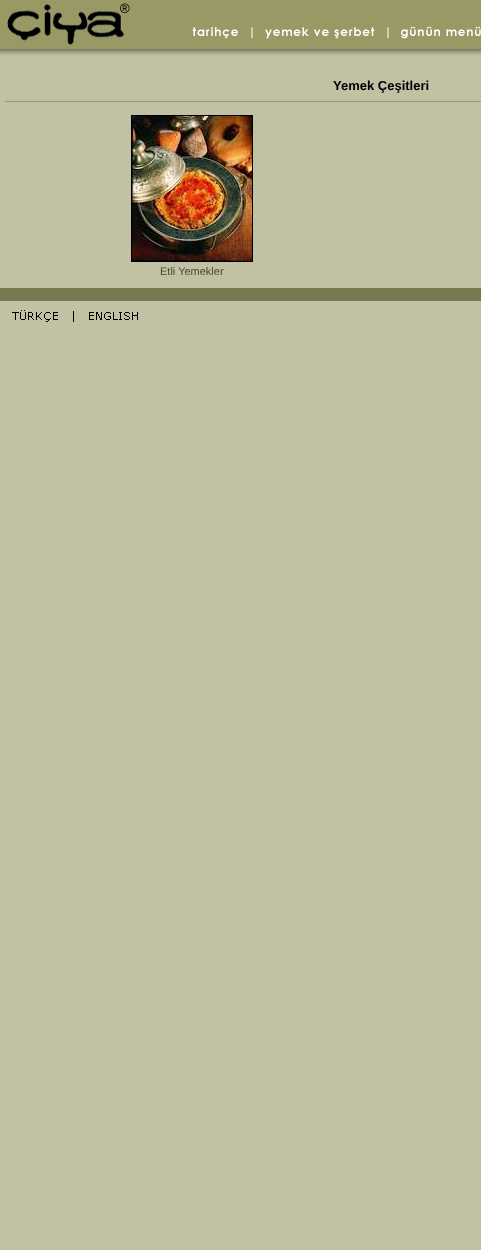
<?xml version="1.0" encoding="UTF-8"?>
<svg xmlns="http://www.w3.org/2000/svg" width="481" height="1250">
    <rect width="100%" height="100%" fill="#C1C1A4"/>
    <image x="0" y="0" width="1" height="56" href="img_01.png"/>
    <image x="1" y="0" width="480" height="56" href="img_02.png"/>
    <image x="7" y="3" width="123" height="42" href="img_03.png"/>
    <image x="192" y="27" width="46" height="12" href="img_04.png"/>
    <image x="251" y="27" width="2" height="12" href="img_05.png"/>
    <image x="265" y="27" width="110" height="12" href="img_06.png"/>
    <image x="387" y="27" width="2" height="12" href="img_05.png"/>
    <image x="401" y="26" width="80" height="13" href="img_07.png"/>
    <text x="333" y="90" font-family="Liberation Sans" font-size="13" font-weight="700" fill="#000000">Yemek Çeşitleri</text>
    <rect x="5" y="101" width="476" height="1" fill="#9C9A63"/>
    <rect x="131" y="115" width="122" height="147" fill="#000000"/>
    <image x="132" y="116" width="120" height="145" href="img_08.png"/>
    <text x="160" y="275" font-family="Liberation Sans" font-size="11" fill="#48482F">Etli Yemekler</text>
    <rect x="0" y="288" width="481" height="13" fill="#797951"/>
    <image x="12" y="310" width="46" height="12" href="img_09.png"/>
    <rect x="73" y="311" width="1" height="11" fill="#000000"/>
    <image x="89" y="312" width="49" height="8" href="img_10.png"/>
</svg>
